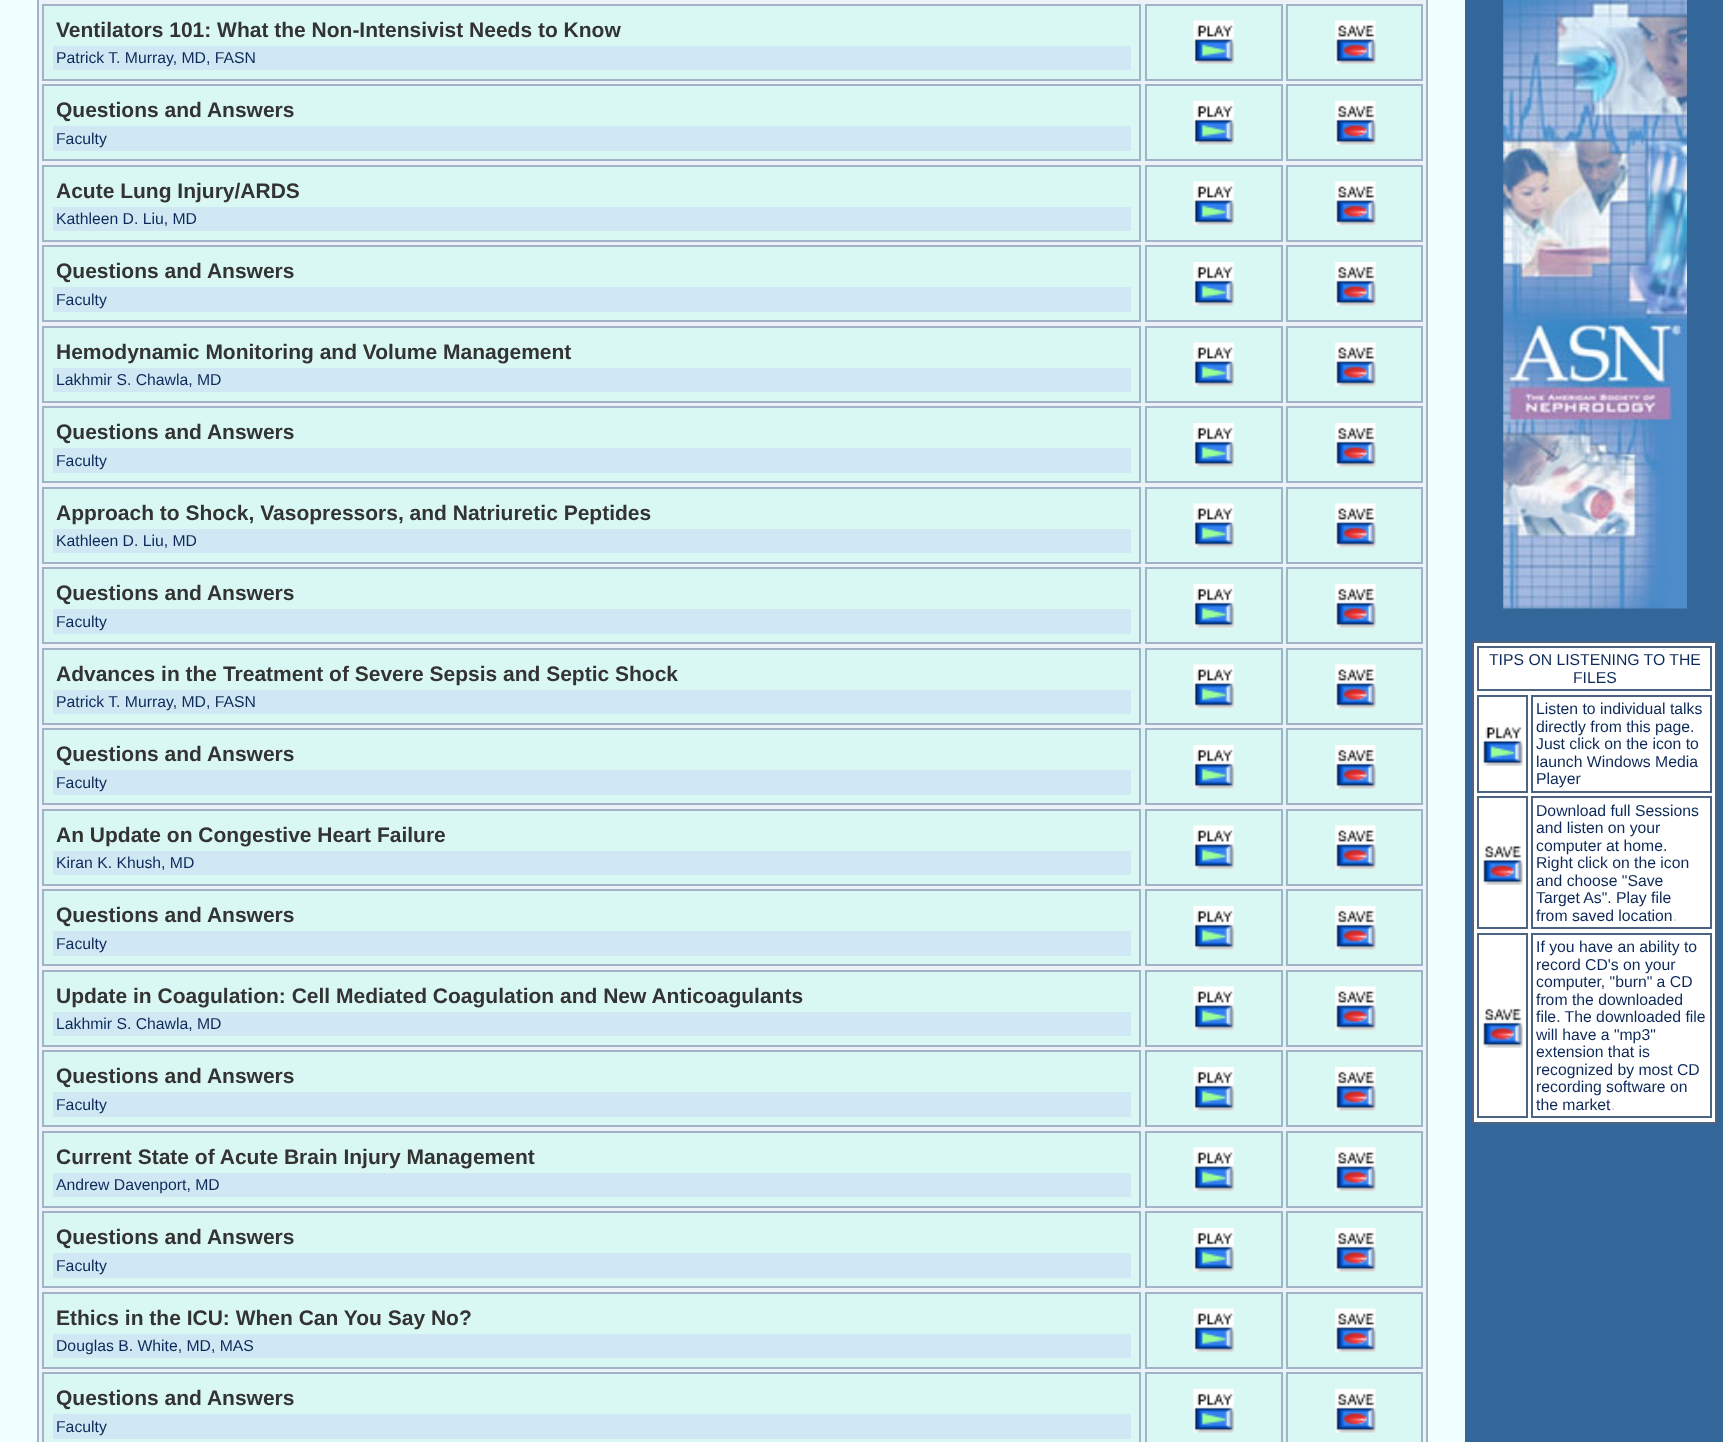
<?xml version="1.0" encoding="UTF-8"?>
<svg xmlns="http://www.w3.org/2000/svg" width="1723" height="1442">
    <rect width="100%" height="100%" fill="#F0FFFF"/>
    <rect x="38" y="-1" width="1389" height="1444" fill="#EDF2F8" stroke="#A3B3C7" stroke-width="2"/>
    <rect x="44" y="4" width="1377" height="77" fill="#DAF8F3"/>
    <rect x="43" y="5" width="1097" height="75" fill="none" stroke="#A3B3C7" stroke-width="2"/>
    <text x="56" y="37" font-family="Liberation Sans" font-size="21" font-weight="700" fill="#333333">Ventilators 101: What the Non-Intensivist Needs to Know</text>
    <rect x="53" y="46" width="1078" height="24" fill="#CFE8F3"/>
    <text x="56" y="63" font-family="Liberation Sans" font-size="15.75" fill="#0D2959">Patrick T. Murray, MD, FASN</text>
    <rect x="1146" y="5" width="136" height="75" fill="none" stroke="#A3B3C7" stroke-width="2"/>
    <image x="1193" y="20" width="41" height="45" href="img_01.png"/>
    <rect x="1287" y="5" width="135" height="75" fill="none" stroke="#A3B3C7" stroke-width="2"/>
    <image x="1335" y="20" width="41" height="45" href="img_02.png"/>
    <rect x="44" y="84" width="1377" height="77" fill="#DAF8F3"/>
    <rect x="43" y="85" width="1097" height="75" fill="none" stroke="#A3B3C7" stroke-width="2"/>
    <text x="56" y="117" font-family="Liberation Sans" font-size="21" font-weight="700" fill="#333333">Questions and Answers</text>
    <rect x="53" y="126" width="1078" height="25" fill="#CFE8F3"/>
    <text x="56" y="144" font-family="Liberation Sans" font-size="15.75" fill="#0D2959">Faculty</text>
    <rect x="1146" y="85" width="136" height="75" fill="none" stroke="#A3B3C7" stroke-width="2"/>
    <image x="1193" y="101" width="41" height="44" href="img_03.png"/>
    <rect x="1287" y="85" width="135" height="75" fill="none" stroke="#A3B3C7" stroke-width="2"/>
    <image x="1335" y="101" width="41" height="44" href="img_04.png"/>
    <rect x="44" y="165" width="1377" height="77" fill="#DAF8F3"/>
    <rect x="43" y="166" width="1097" height="75" fill="none" stroke="#A3B3C7" stroke-width="2"/>
    <text x="56" y="198" font-family="Liberation Sans" font-size="21" font-weight="700" fill="#333333">Acute Lung Injury/ARDS</text>
    <rect x="53" y="207" width="1078" height="24" fill="#CFE8F3"/>
    <text x="56" y="224" font-family="Liberation Sans" font-size="15.75" fill="#0D2959">Kathleen D. Liu, MD</text>
    <rect x="1146" y="166" width="136" height="75" fill="none" stroke="#A3B3C7" stroke-width="2"/>
    <image x="1193" y="181" width="41" height="45" href="img_01.png"/>
    <rect x="1287" y="166" width="135" height="75" fill="none" stroke="#A3B3C7" stroke-width="2"/>
    <image x="1335" y="181" width="41" height="45" href="img_02.png"/>
    <rect x="44" y="245" width="1377" height="77" fill="#DAF8F3"/>
    <rect x="43" y="246" width="1097" height="75" fill="none" stroke="#A3B3C7" stroke-width="2"/>
    <text x="56" y="278" font-family="Liberation Sans" font-size="21" font-weight="700" fill="#333333">Questions and Answers</text>
    <rect x="53" y="287" width="1078" height="25" fill="#CFE8F3"/>
    <text x="56" y="305" font-family="Liberation Sans" font-size="15.75" fill="#0D2959">Faculty</text>
    <rect x="1146" y="246" width="136" height="75" fill="none" stroke="#A3B3C7" stroke-width="2"/>
    <image x="1193" y="262" width="41" height="44" href="img_03.png"/>
    <rect x="1287" y="246" width="135" height="75" fill="none" stroke="#A3B3C7" stroke-width="2"/>
    <image x="1335" y="262" width="41" height="44" href="img_04.png"/>
    <rect x="44" y="326" width="1377" height="77" fill="#DAF8F3"/>
    <rect x="43" y="327" width="1097" height="75" fill="none" stroke="#A3B3C7" stroke-width="2"/>
    <text x="56" y="359" font-family="Liberation Sans" font-size="21" font-weight="700" fill="#333333">Hemodynamic Monitoring and Volume Management</text>
    <rect x="53" y="368" width="1078" height="24" fill="#CFE8F3"/>
    <text x="56" y="385" font-family="Liberation Sans" font-size="15.75" fill="#0D2959">Lakhmir S. Chawla, MD</text>
    <rect x="1146" y="327" width="136" height="75" fill="none" stroke="#A3B3C7" stroke-width="2"/>
    <image x="1193" y="342" width="41" height="45" href="img_01.png"/>
    <rect x="1287" y="327" width="135" height="75" fill="none" stroke="#A3B3C7" stroke-width="2"/>
    <image x="1335" y="342" width="41" height="45" href="img_02.png"/>
    <rect x="44" y="406" width="1377" height="77" fill="#DAF8F3"/>
    <rect x="43" y="407" width="1097" height="75" fill="none" stroke="#A3B3C7" stroke-width="2"/>
    <text x="56" y="439" font-family="Liberation Sans" font-size="21" font-weight="700" fill="#333333">Questions and Answers</text>
    <rect x="53" y="448" width="1078" height="25" fill="#CFE8F3"/>
    <text x="56" y="466" font-family="Liberation Sans" font-size="15.75" fill="#0D2959">Faculty</text>
    <rect x="1146" y="407" width="136" height="75" fill="none" stroke="#A3B3C7" stroke-width="2"/>
    <image x="1193" y="423" width="41" height="44" href="img_03.png"/>
    <rect x="1287" y="407" width="135" height="75" fill="none" stroke="#A3B3C7" stroke-width="2"/>
    <image x="1335" y="423" width="41" height="44" href="img_04.png"/>
    <rect x="44" y="487" width="1377" height="77" fill="#DAF8F3"/>
    <rect x="43" y="488" width="1097" height="75" fill="none" stroke="#A3B3C7" stroke-width="2"/>
    <text x="56" y="520" font-family="Liberation Sans" font-size="21" font-weight="700" fill="#333333">Approach to Shock, Vasopressors, and Natriuretic Peptides</text>
    <rect x="53" y="529" width="1078" height="24" fill="#CFE8F3"/>
    <text x="56" y="546" font-family="Liberation Sans" font-size="15.75" fill="#0D2959">Kathleen D. Liu, MD</text>
    <rect x="1146" y="488" width="136" height="75" fill="none" stroke="#A3B3C7" stroke-width="2"/>
    <image x="1193" y="503" width="41" height="45" href="img_01.png"/>
    <rect x="1287" y="488" width="135" height="75" fill="none" stroke="#A3B3C7" stroke-width="2"/>
    <image x="1335" y="503" width="41" height="45" href="img_02.png"/>
    <rect x="44" y="567" width="1377" height="77" fill="#DAF8F3"/>
    <rect x="43" y="568" width="1097" height="75" fill="none" stroke="#A3B3C7" stroke-width="2"/>
    <text x="56" y="600" font-family="Liberation Sans" font-size="21" font-weight="700" fill="#333333">Questions and Answers</text>
    <rect x="53" y="609" width="1078" height="25" fill="#CFE8F3"/>
    <text x="56" y="627" font-family="Liberation Sans" font-size="15.75" fill="#0D2959">Faculty</text>
    <rect x="1146" y="568" width="136" height="75" fill="none" stroke="#A3B3C7" stroke-width="2"/>
    <image x="1193" y="584" width="41" height="44" href="img_03.png"/>
    <rect x="1287" y="568" width="135" height="75" fill="none" stroke="#A3B3C7" stroke-width="2"/>
    <image x="1335" y="584" width="41" height="44" href="img_04.png"/>
    <rect x="44" y="648" width="1377" height="77" fill="#DAF8F3"/>
    <rect x="43" y="649" width="1097" height="75" fill="none" stroke="#A3B3C7" stroke-width="2"/>
    <text x="56" y="681" font-family="Liberation Sans" font-size="21" font-weight="700" fill="#333333">Advances in the Treatment of Severe Sepsis and Septic Shock</text>
    <rect x="53" y="690" width="1078" height="24" fill="#CFE8F3"/>
    <text x="56" y="707" font-family="Liberation Sans" font-size="15.75" fill="#0D2959">Patrick T. Murray, MD, FASN</text>
    <rect x="1146" y="649" width="136" height="75" fill="none" stroke="#A3B3C7" stroke-width="2"/>
    <image x="1193" y="664" width="41" height="45" href="img_01.png"/>
    <rect x="1287" y="649" width="135" height="75" fill="none" stroke="#A3B3C7" stroke-width="2"/>
    <image x="1335" y="664" width="41" height="45" href="img_02.png"/>
    <rect x="44" y="728" width="1377" height="77" fill="#DAF8F3"/>
    <rect x="43" y="729" width="1097" height="75" fill="none" stroke="#A3B3C7" stroke-width="2"/>
    <text x="56" y="761" font-family="Liberation Sans" font-size="21" font-weight="700" fill="#333333">Questions and Answers</text>
    <rect x="53" y="770" width="1078" height="25" fill="#CFE8F3"/>
    <text x="56" y="788" font-family="Liberation Sans" font-size="15.75" fill="#0D2959">Faculty</text>
    <rect x="1146" y="729" width="136" height="75" fill="none" stroke="#A3B3C7" stroke-width="2"/>
    <image x="1193" y="745" width="41" height="44" href="img_03.png"/>
    <rect x="1287" y="729" width="135" height="75" fill="none" stroke="#A3B3C7" stroke-width="2"/>
    <image x="1335" y="745" width="41" height="44" href="img_04.png"/>
    <rect x="44" y="809" width="1377" height="77" fill="#DAF8F3"/>
    <rect x="43" y="810" width="1097" height="75" fill="none" stroke="#A3B3C7" stroke-width="2"/>
    <text x="56" y="842" font-family="Liberation Sans" font-size="21" font-weight="700" fill="#333333">An Update on Congestive Heart Failure</text>
    <rect x="53" y="851" width="1078" height="24" fill="#CFE8F3"/>
    <text x="56" y="868" font-family="Liberation Sans" font-size="15.75" fill="#0D2959">Kiran K. Khush, MD</text>
    <rect x="1146" y="810" width="136" height="75" fill="none" stroke="#A3B3C7" stroke-width="2"/>
    <image x="1193" y="825" width="41" height="45" href="img_01.png"/>
    <rect x="1287" y="810" width="135" height="75" fill="none" stroke="#A3B3C7" stroke-width="2"/>
    <image x="1335" y="825" width="41" height="45" href="img_02.png"/>
    <rect x="44" y="889" width="1377" height="77" fill="#DAF8F3"/>
    <rect x="43" y="890" width="1097" height="75" fill="none" stroke="#A3B3C7" stroke-width="2"/>
    <text x="56" y="922" font-family="Liberation Sans" font-size="21" font-weight="700" fill="#333333">Questions and Answers</text>
    <rect x="53" y="931" width="1078" height="25" fill="#CFE8F3"/>
    <text x="56" y="949" font-family="Liberation Sans" font-size="15.75" fill="#0D2959">Faculty</text>
    <rect x="1146" y="890" width="136" height="75" fill="none" stroke="#A3B3C7" stroke-width="2"/>
    <image x="1193" y="906" width="41" height="44" href="img_03.png"/>
    <rect x="1287" y="890" width="135" height="75" fill="none" stroke="#A3B3C7" stroke-width="2"/>
    <image x="1335" y="906" width="41" height="44" href="img_04.png"/>
    <rect x="44" y="970" width="1377" height="77" fill="#DAF8F3"/>
    <rect x="43" y="971" width="1097" height="75" fill="none" stroke="#A3B3C7" stroke-width="2"/>
    <text x="56" y="1003" font-family="Liberation Sans" font-size="21" font-weight="700" fill="#333333">Update in Coagulation: Cell Mediated Coagulation and New Anticoagulants</text>
    <rect x="53" y="1012" width="1078" height="24" fill="#CFE8F3"/>
    <text x="56" y="1029" font-family="Liberation Sans" font-size="15.75" fill="#0D2959">Lakhmir S. Chawla, MD</text>
    <rect x="1146" y="971" width="136" height="75" fill="none" stroke="#A3B3C7" stroke-width="2"/>
    <image x="1193" y="986" width="41" height="45" href="img_01.png"/>
    <rect x="1287" y="971" width="135" height="75" fill="none" stroke="#A3B3C7" stroke-width="2"/>
    <image x="1335" y="986" width="41" height="45" href="img_02.png"/>
    <rect x="44" y="1050" width="1377" height="77" fill="#DAF8F3"/>
    <rect x="43" y="1051" width="1097" height="75" fill="none" stroke="#A3B3C7" stroke-width="2"/>
    <text x="56" y="1083" font-family="Liberation Sans" font-size="21" font-weight="700" fill="#333333">Questions and Answers</text>
    <rect x="53" y="1092" width="1078" height="25" fill="#CFE8F3"/>
    <text x="56" y="1110" font-family="Liberation Sans" font-size="15.75" fill="#0D2959">Faculty</text>
    <rect x="1146" y="1051" width="136" height="75" fill="none" stroke="#A3B3C7" stroke-width="2"/>
    <image x="1193" y="1067" width="41" height="44" href="img_03.png"/>
    <rect x="1287" y="1051" width="135" height="75" fill="none" stroke="#A3B3C7" stroke-width="2"/>
    <image x="1335" y="1067" width="41" height="44" href="img_04.png"/>
    <rect x="44" y="1131" width="1377" height="77" fill="#DAF8F3"/>
    <rect x="43" y="1132" width="1097" height="75" fill="none" stroke="#A3B3C7" stroke-width="2"/>
    <text x="56" y="1164" font-family="Liberation Sans" font-size="21" font-weight="700" fill="#333333">Current State of Acute Brain Injury Management</text>
    <rect x="53" y="1173" width="1078" height="24" fill="#CFE8F3"/>
    <text x="56" y="1190" font-family="Liberation Sans" font-size="15.75" fill="#0D2959">Andrew Davenport, MD</text>
    <rect x="1146" y="1132" width="136" height="75" fill="none" stroke="#A3B3C7" stroke-width="2"/>
    <image x="1193" y="1147" width="41" height="45" href="img_01.png"/>
    <rect x="1287" y="1132" width="135" height="75" fill="none" stroke="#A3B3C7" stroke-width="2"/>
    <image x="1335" y="1147" width="41" height="45" href="img_02.png"/>
    <rect x="44" y="1211" width="1377" height="77" fill="#DAF8F3"/>
    <rect x="43" y="1212" width="1097" height="75" fill="none" stroke="#A3B3C7" stroke-width="2"/>
    <text x="56" y="1244" font-family="Liberation Sans" font-size="21" font-weight="700" fill="#333333">Questions and Answers</text>
    <rect x="53" y="1253" width="1078" height="25" fill="#CFE8F3"/>
    <text x="56" y="1271" font-family="Liberation Sans" font-size="15.75" fill="#0D2959">Faculty</text>
    <rect x="1146" y="1212" width="136" height="75" fill="none" stroke="#A3B3C7" stroke-width="2"/>
    <image x="1193" y="1228" width="41" height="44" href="img_03.png"/>
    <rect x="1287" y="1212" width="135" height="75" fill="none" stroke="#A3B3C7" stroke-width="2"/>
    <image x="1335" y="1228" width="41" height="44" href="img_04.png"/>
    <rect x="44" y="1292" width="1377" height="77" fill="#DAF8F3"/>
    <rect x="43" y="1293" width="1097" height="75" fill="none" stroke="#A3B3C7" stroke-width="2"/>
    <text x="56" y="1325" font-family="Liberation Sans" font-size="21" font-weight="700" fill="#333333">Ethics in the ICU: When Can You Say No?</text>
    <rect x="53" y="1334" width="1078" height="24" fill="#CFE8F3"/>
    <text x="56" y="1351" font-family="Liberation Sans" font-size="15.75" fill="#0D2959">Douglas B. White, MD, MAS</text>
    <rect x="1146" y="1293" width="136" height="75" fill="none" stroke="#A3B3C7" stroke-width="2"/>
    <image x="1193" y="1308" width="41" height="45" href="img_05.png"/>
    <rect x="1287" y="1293" width="135" height="75" fill="none" stroke="#A3B3C7" stroke-width="2"/>
    <image x="1335" y="1308" width="41" height="45" href="img_06.png"/>
    <rect x="44" y="1372" width="1377" height="70" fill="#DAF8F3"/>
    <rect x="43" y="1373" width="1097" height="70" fill="none" stroke="#A3B3C7" stroke-width="2"/>
    <text x="56" y="1405" font-family="Liberation Sans" font-size="21" font-weight="700" fill="#333333">Questions and Answers</text>
    <rect x="53" y="1414" width="1078" height="25" fill="#CFE8F3"/>
    <text x="56" y="1432" font-family="Liberation Sans" font-size="15.75" fill="#0D2959">Faculty</text>
    <rect x="1146" y="1373" width="136" height="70" fill="none" stroke="#A3B3C7" stroke-width="2"/>
    <image x="1193" y="1389" width="41" height="44" href="img_03.png"/>
    <rect x="1287" y="1373" width="135" height="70" fill="none" stroke="#A3B3C7" stroke-width="2"/>
    <image x="1335" y="1389" width="41" height="44" href="img_04.png"/>
    <rect x="1465" y="0" width="258" height="1442" fill="#336699"/>
    <image x="1503" y="0" width="184" height="609" href="img_07.png"/>
    <rect x="1473" y="642" width="243" height="481" fill="#FFFFFF" stroke="#4D6480" stroke-width="2"/>
    <rect x="1478" y="647" width="233" height="43" fill="none" stroke="#4D6480" stroke-width="2"/>
    <text x="1489" y="665" font-family="Liberation Sans" font-size="15.75" fill="#0D2959">TIPS ON LISTENING TO THE</text>
    <text x="1573" y="683" font-family="Liberation Sans" font-size="15.75" fill="#0D2959">FILES</text>
    <rect x="1478" y="696" width="49" height="96" fill="none" stroke="#4D6480" stroke-width="2"/>
    <image x="1482" y="727" width="41" height="39" href="img_08.png"/>
    <rect x="1532" y="696" width="179" height="96" fill="none" stroke="#4D6480" stroke-width="2"/>
    <text font-family="Liberation Sans" font-size="15.75" fill="#0D2959">
        <tspan x="1536" y="714">Listen to individual talks</tspan>
        <tspan x="1536" y="732">directly from this page.</tspan>
        <tspan x="1536" y="749">Just click on the icon to</tspan>
        <tspan x="1536" y="767">launch Windows Media</tspan>
        <tspan x="1536" y="784">Player</tspan>
    </text>
    <rect x="1478" y="797" width="49" height="131" fill="none" stroke="#4D6480" stroke-width="2"/>
    <image x="1482" y="846" width="41" height="39" href="img_09.png"/>
    <rect x="1532" y="797" width="179" height="131" fill="none" stroke="#4D6480" stroke-width="2"/>
    <text font-family="Liberation Sans" font-size="15.75" fill="#0D2959">
        <tspan x="1536" y="816">Download full Sessions</tspan>
        <tspan x="1536" y="833">and listen on your</tspan>
        <tspan x="1536" y="851">computer at home.</tspan>
        <tspan x="1536" y="868">Right click on the icon</tspan>
        <tspan x="1536" y="886">and choose "Save</tspan>
        <tspan x="1536" y="903">Target As". Play file</tspan>
        <tspan x="1536" y="921">from saved location</tspan>
    </text>
    <text x="1673" y="921" font-family="Liberation Sans" font-size="15.75" fill="#E4CBCB">.</text>
    <rect x="1478" y="934" width="49" height="183" fill="none" stroke="#4D6480" stroke-width="2"/>
    <image x="1482" y="1008" width="41" height="40" href="img_10.png"/>
    <rect x="1532" y="934" width="179" height="183" fill="none" stroke="#4D6480" stroke-width="2"/>
    <text font-family="Liberation Sans" font-size="15.75" fill="#0D2959">
        <tspan x="1536" y="952">If you have an ability to</tspan>
        <tspan x="1536" y="970">record CD's on your</tspan>
        <tspan x="1536" y="987">computer, "burn" a CD</tspan>
        <tspan x="1536" y="1005">from the downloaded</tspan>
        <tspan x="1536" y="1022">file. The downloaded file</tspan>
        <tspan x="1536" y="1040">will have a "mp3"</tspan>
        <tspan x="1536" y="1057">extension that is</tspan>
        <tspan x="1536" y="1075">recognized by most CD</tspan>
        <tspan x="1536" y="1092">recording software on</tspan>
        <tspan x="1536" y="1110">the market</tspan>
    </text>
    <text x="1611" y="1110" font-family="Liberation Sans" font-size="15.75" fill="#E4CBCB">.</text>
</svg>
